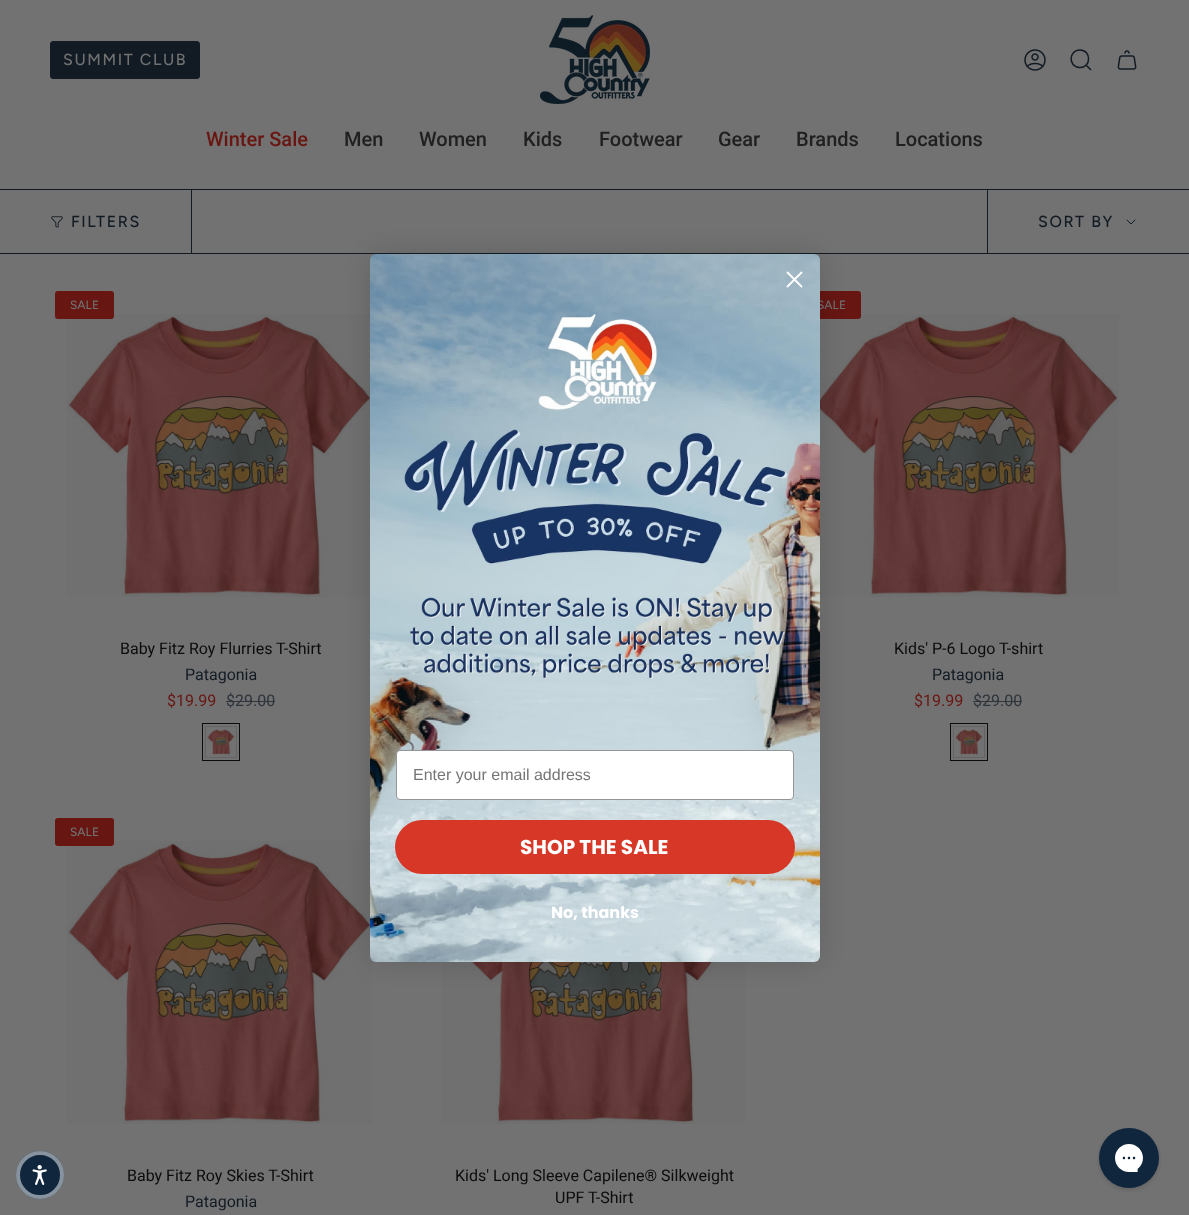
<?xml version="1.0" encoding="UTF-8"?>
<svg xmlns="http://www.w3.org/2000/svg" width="1189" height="1215">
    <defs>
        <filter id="blur1" x="-50%" y="-200%" width="200%" height="500%"><feGaussianBlur stdDeviation="15"/></filter>
    </defs>
    <rect width="100%" height="100%" fill="#727272"/>
    <rect x="50.5" y="41.5" width="149" height="37" rx="2.5" fill="#121B24" stroke="#121B24"/>
    <text x="63" y="65" font-family="Figtree" font-size="16" font-weight="500" letter-spacing="1.6" fill="#707070">SUMMIT CLUB</text>
    <image x="540" y="15" width="110" height="89" href="img_01.png"/>
    <image x="1024" y="49" width="22" height="22" href="img_02.png"/>
    <path d="M 1080 50 C 1091.5 50 1091.5 68 1079.5 67.5 C 1068 67 1068.5 50 1080 50 Z M 1086 65 L 1091 70" fill="none" stroke="#121B24" stroke-width="1.5"/>
    <image x="1117" y="50" width="20" height="20" href="img_03.png"/>
    <text x="206" y="146" font-family="Roboto" font-size="20" font-weight="500" fill="#691612">Winter Sale</text>
    <text x="344" y="146" font-family="Roboto" font-size="20" font-weight="500" fill="#202020">Men</text>
    <text x="419" y="146" font-family="Roboto" font-size="20" font-weight="500" fill="#202020">Women</text>
    <text x="523" y="146" font-family="Roboto" font-size="20" font-weight="500" fill="#202020">Kids</text>
    <text x="599" y="146" font-family="Roboto" font-size="20" font-weight="500" fill="#202020">Footwear</text>
    <text x="718" y="146" font-family="Roboto" font-size="20" font-weight="500" fill="#202020">Gear</text>
    <text x="796" y="146" font-family="Roboto" font-size="20" font-weight="500" fill="#202020">Brands</text>
    <text x="895" y="146" font-family="Roboto" font-size="20" font-weight="500" fill="#202020">Locations</text>
    <rect x="0" y="189" width="1189" height="1" fill="#121B24"/>
    <rect x="0" y="253" width="1189" height="1" fill="#121B24"/>
    <rect x="191" y="190" width="1" height="63" fill="#121B24"/>
    <image x="51" y="216" width="12" height="12" href="img_04.png"/>
    <text x="71" y="227" font-family="Figtree" font-size="16" font-weight="500" letter-spacing="1.6" fill="#121B24">FILTERS</text>
    <rect x="987" y="190" width="1" height="63" fill="#121B24"/>
    <text x="1038" y="227" font-family="Figtree" font-size="16" font-weight="500" letter-spacing="1.6" fill="#121B24">SORT BY</text>
    <path d="M 1127 220 L 1131 224 L 1135 220" fill="none" stroke="#121B24" stroke-linecap="round" stroke-linejoin="round"/>
    <image x="67" y="314" width="303" height="283" href="img_05.png"/>
    <rect x="55" y="291" width="59" height="28" rx="3" fill="#671612"/>
    <text x="70" y="309" font-family="Figtree" font-size="12" font-weight="500" fill="#707070">SALE</text>
    <text x="120" y="654" font-family="Roboto" font-size="16" fill="#0C0C0C">Baby Fitz Roy Flurries T-Shirt</text>
    <text x="185" y="680" font-family="Roboto" font-size="16" fill="#121B24">Patagonia</text>
    <text x="167" y="706" font-family="Roboto" font-size="16" fill="#691612">$19.99</text>
    <text x="226" y="706" font-family="Roboto" font-size="16" fill="#2F353C">$29.00</text>
    <rect x="226" y="701" width="49" height="1" fill="#2F353C"/>
    <rect x="202.5" y="723.5" width="37" height="37" fill="none" stroke="#0C0C0C"/>
    <image x="206" y="729" width="30" height="28" href="img_06.png"/>
    <rect x="205.5" y="726.5" width="31" height="31" fill="none" stroke="#646464"/>
    <image x="820" y="314" width="299" height="283" href="img_07.png"/>
    <rect x="802" y="291" width="59" height="28" rx="3" fill="#671612"/>
    <text x="817" y="309" font-family="Figtree" font-size="12" font-weight="500" fill="#707070">SALE</text>
    <text x="894" y="654" font-family="Roboto" font-size="16" fill="#0C0C0C">Kids' P-6 Logo T-shirt</text>
    <text x="932" y="680" font-family="Roboto" font-size="16" fill="#121B24">Patagonia</text>
    <text x="914" y="706" font-family="Roboto" font-size="16" fill="#691612">$19.99</text>
    <text x="973" y="706" font-family="Roboto" font-size="16" fill="#2F353C">$29.00</text>
    <rect x="973" y="701" width="49" height="1" fill="#2F353C"/>
    <rect x="950.5" y="723.5" width="37" height="37" fill="none" stroke="#0C0C0C"/>
    <image x="954" y="729" width="30" height="28" href="img_08.png"/>
    <rect x="953.5" y="726.5" width="31" height="31" fill="none" stroke="#646464"/>
    <image x="67" y="841" width="305" height="283" href="img_09.png"/>
    <rect x="55" y="818" width="59" height="28" rx="3" fill="#671612"/>
    <text x="70" y="836" font-family="Figtree" font-size="12" font-weight="500" fill="#707070">SALE</text>
    <text x="127" y="1181" font-family="Roboto" font-size="16" fill="#0C0C0C">Baby Fitz Roy Skies T-Shirt</text>
    <text x="185" y="1207" font-family="Roboto" font-size="16" fill="#121B24">Patagonia</text>
    <image x="441" y="962" width="304" height="162" href="img_10.png"/>
    <text x="455" y="1181" font-family="Roboto" font-size="16" fill="#0C0C0C">Kids' Long Sleeve Capilene® Silkweight</text>
    <text x="555" y="1203" font-family="Roboto" font-size="16" fill="#0C0C0C">UPF T-Shirt</text>
    <rect x="370" y="254" width="450" height="708" rx="6" fill="#000000" fill-opacity="0.15" filter="url(#blur1)"/>
    <image x="370" y="254" width="450" height="708" href="img_11.png"/>
    <path d="M 787.5 272.5 L 801.5 286.5 M 787.5 286.5 L 801.5 272.5 Z" fill="none" stroke="#FFFFFF" stroke-width="1.8" stroke-linecap="round" stroke-linejoin="round"/>
    <rect x="396.5" y="750.5" width="397" height="49" rx="3.5" fill="#FFFFFF" stroke="#949596"/>
    <text x="413" y="780" font-family="Liberation Sans" font-size="16" fill="#767676">Enter your email address</text>
    <rect x="395" y="820" width="400" height="54" rx="27" fill="#D73727"/>
    <text x="520" y="854" font-family="Poppins" font-size="20" font-weight="700" fill="#FFFFFF">SHOP THE SALE</text>
    <text x="551" y="918" font-family="Poppins" font-size="16" font-weight="700" fill="#FFFFFF">No, thanks</text>
    <circle cx="40" cy="1175" r="24" fill="#0F263D"/>
    <circle cx="40" cy="1175" r="22" fill="none" stroke="#FFFFFF" stroke-opacity="0.5" stroke-width="4"/>
    <image x="32" y="1165" width="15" height="20" href="img_12.png"/>
    <image x="1097" y="1128" width="64" height="64" href="img_13.png"/>
</svg>
